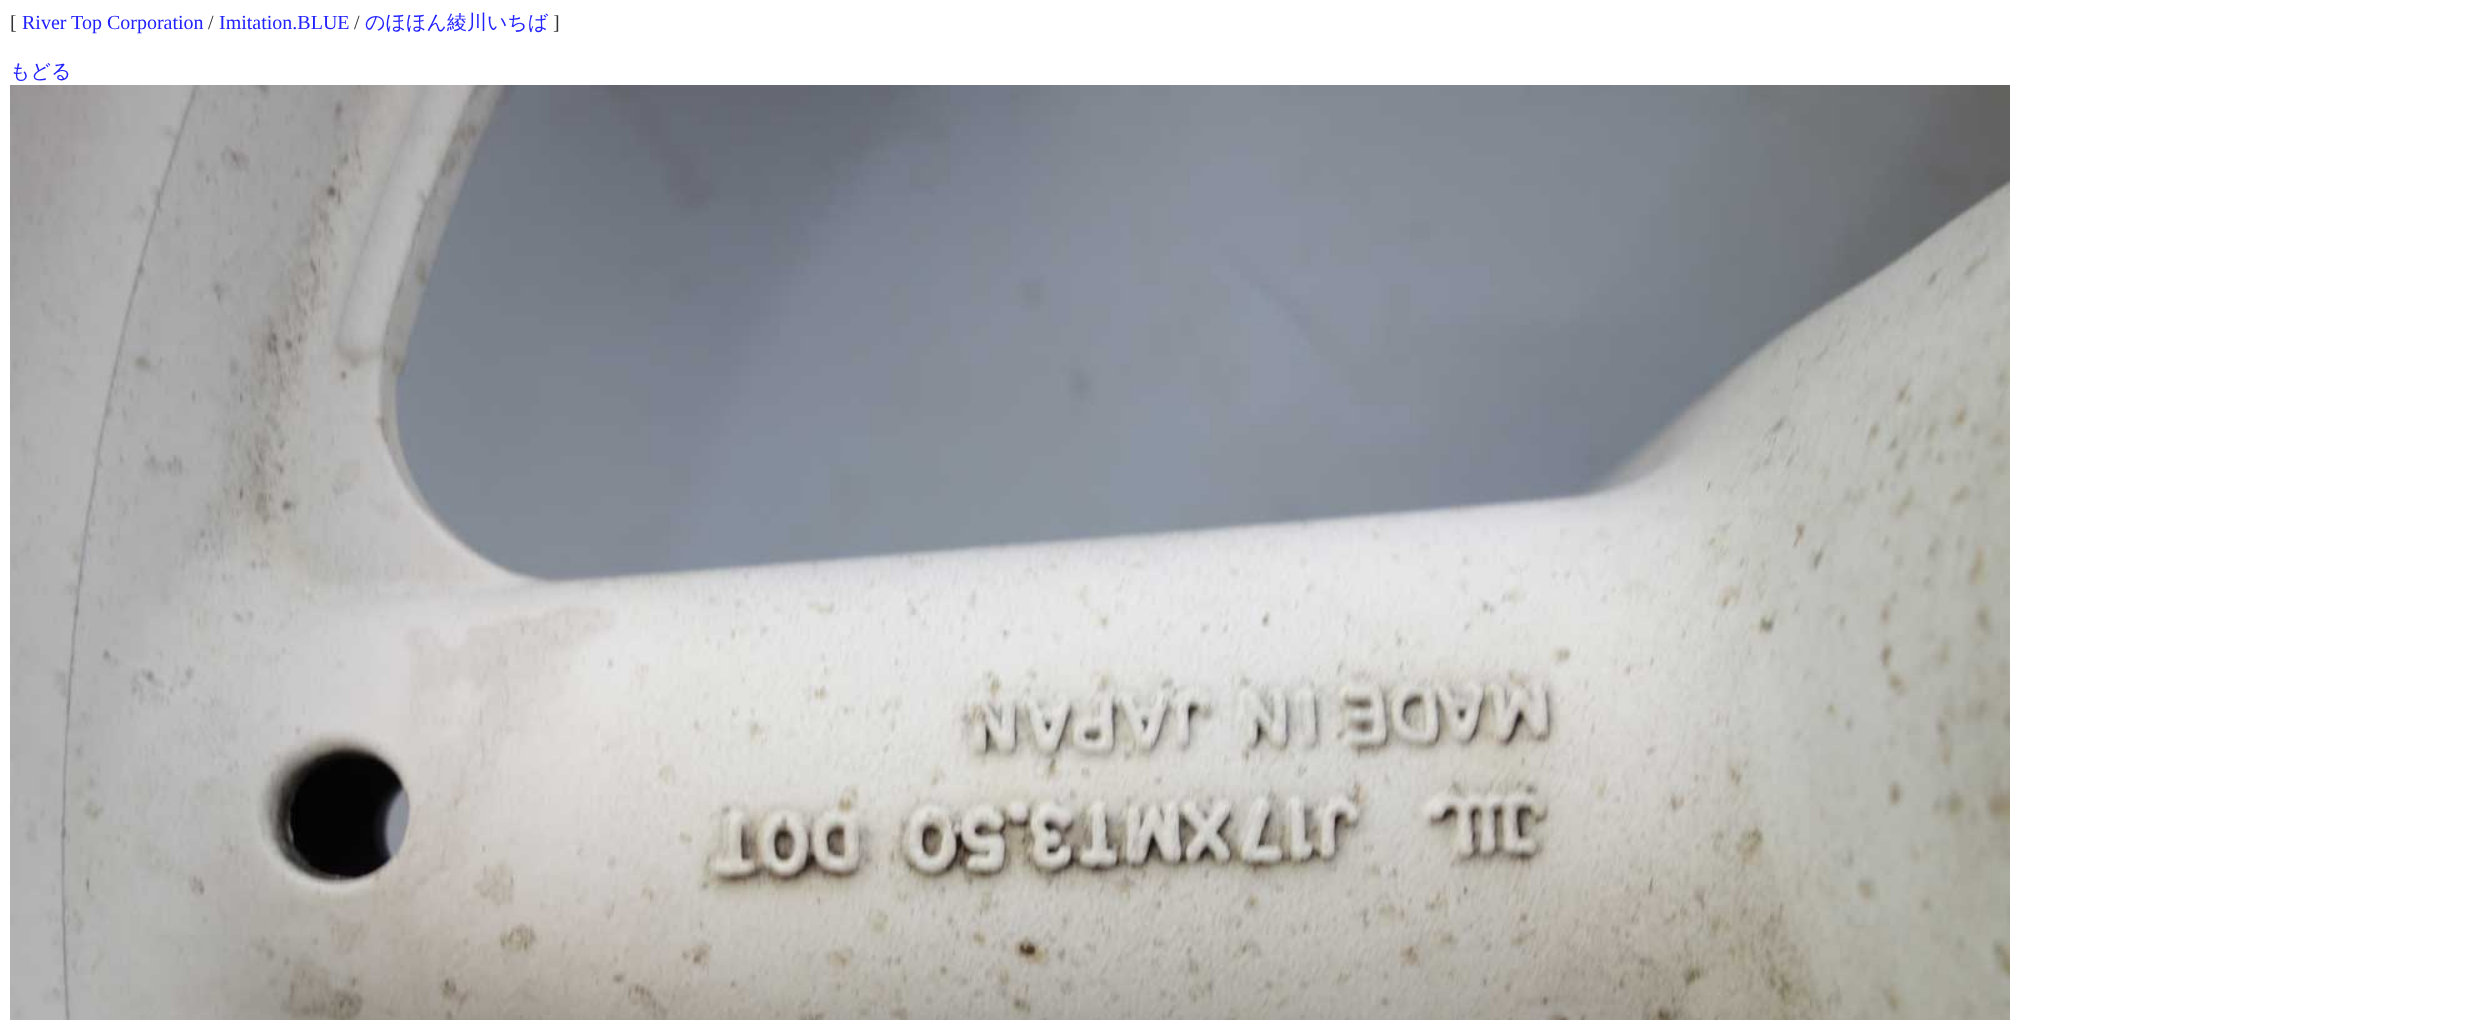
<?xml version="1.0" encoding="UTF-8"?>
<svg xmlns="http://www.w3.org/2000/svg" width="2477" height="1020">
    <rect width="100%" height="100%" fill="#FFFFFF"/>
    <text x="10" y="29" font-family="Liberation Serif" font-size="20" fill="#333333">[</text>
    <text x="22" y="29" font-family="Liberation Serif" font-size="20" fill="#2222FF">River Top Corporation</text>
    <text x="208" y="29" font-family="Liberation Serif" font-size="20" fill="#333333">/</text>
    <text x="219" y="29" font-family="Liberation Serif" font-size="20" fill="#2222FF">Imitation.BLUE</text>
    <text x="354" y="29" font-family="Liberation Serif" font-size="20" fill="#333333">/</text>
    <text x="365" y="29" font-family="WenQuanYi Zen Hei" font-size="20" font-weight="500" fill="#2222FF">のほほん綾川いちば</text>
    <text x="553" y="29" font-family="Liberation Serif" font-size="20" fill="#333333">]</text>
    <text x="10" y="78" font-family="WenQuanYi Zen Hei" font-size="20" font-weight="500" fill="#2222FF">もどる</text>
    <image x="10" y="85" width="2000" height="935" href="img_01.png"/>
</svg>
